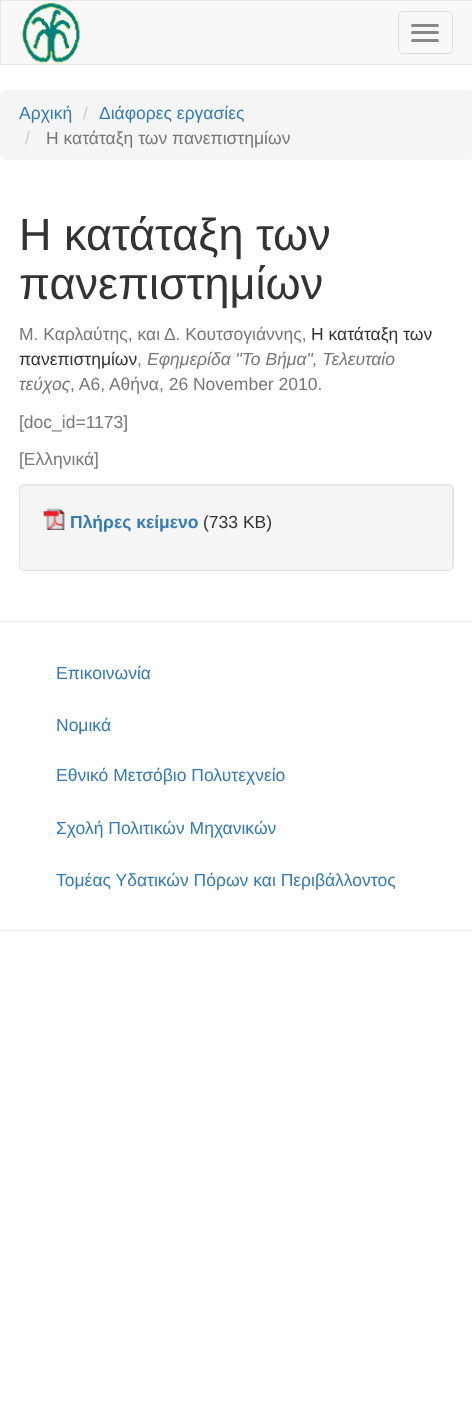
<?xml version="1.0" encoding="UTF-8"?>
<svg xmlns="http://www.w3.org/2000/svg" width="472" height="1409">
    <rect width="100%" height="100%" fill="#FFFFFF"/>
    <rect x="0.5" y="0.5" width="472" height="64" fill="#F8F8F8" stroke="#E7E7E7"/>
    <image x="22" y="2" width="58" height="62" href="img_01.png"/>
    <rect x="398.5" y="11.5" width="54" height="42" rx="4.5" fill="none" stroke="#DDDDDD"/>
    <rect x="411" y="24" width="28" height="3" rx="1.5" fill="#888888"/>
    <rect x="411" y="31" width="28" height="3" rx="1.5" fill="#888888"/>
    <rect x="411" y="39" width="28" height="3" rx="1.5" fill="#888888"/>
    <rect x="0" y="90" width="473" height="70" rx="5" fill="#F5F5F5"/>
    <text x="19" y="119" font-family="Liberation Sans" font-size="17.5" fill="#337AB7">Αρχική</text>
    <text x="83" y="119" font-family="Liberation Sans" font-size="17.5" fill="#CCCCCC">/</text>
    <text x="99" y="119" font-family="Liberation Sans" font-size="17.5" fill="#337AB7">Διάφορες εργασίες</text>
    <text x="25" y="144" font-family="Liberation Sans" font-size="17.5" fill="#CCCCCC">/</text>
    <text x="46" y="144" font-family="Liberation Sans" font-size="17.5" fill="#777777">Η κατάταξη των πανεπιστημίων</text>
    <text font-family="Liberation Sans" font-size="45" fill="#333333">
        <tspan x="19" y="250">Η κατάταξη των</tspan>
        <tspan x="19" y="299">πανεπιστημίων</tspan>
    </text>
    <text x="19" y="340" font-family="Liberation Sans" font-size="17.5" fill="#777777">Μ. Καρλαύτης, και Δ. Κουτσογιάννης,</text>
    <text x="311" y="340" font-family="Liberation Sans" font-size="17.5" fill="#333333">Η κατάταξη των</text>
    <text x="19" y="365" font-family="Liberation Sans" font-size="17.5" fill="#333333">πανεπιστημίων</text>
    <text x="137" y="365" font-family="Liberation Sans" font-size="17.5" fill="#777777">,</text>
    <text x="147" y="365" font-family="Liberation Sans" font-size="17.5" font-style="italic" fill="#777777">Εφημερίδα "Το Βήμα", Τελευταίο</text>
    <text x="19" y="390" font-family="Liberation Sans" font-size="17.5" font-style="italic" fill="#777777">τεύχος</text>
    <text x="70" y="390" font-family="Liberation Sans" font-size="17.5" fill="#777777">, Α6, Αθήνα, 26 November 2010.</text>
    <text x="19" y="428" font-family="Liberation Sans" font-size="17.5" fill="#777777">[doc_id=1173]</text>
    <text x="19" y="465" font-family="Liberation Sans" font-size="17.5" fill="#777777">[Ελληνικά]</text>
    <rect x="19" y="484" width="435" height="87" rx="5" fill="#F5F5F5"/>
    <path d="M 24 486 H 449 C 451 486 452 488 452 490 V 569 C 453 568 453 567 453 566 V 489 C 453 487 451 485 449 485 H 24 C 22 485 20 487 20 489 V 490 C 20 488 22 486 24 486 Z" fill="#E9E9E9"/>
    <rect x="19.5" y="484.5" width="434" height="86" rx="4.5" fill="none" stroke="#E3E3E3"/>
    <image x="43" y="508" width="22" height="22" href="img_02.png"/>
    <text x="70" y="528" font-family="Liberation Sans" font-size="17.5" font-weight="700" fill="#337AB7">Πλήρες κείμενο</text>
    <text x="203" y="528" font-family="Liberation Sans" font-size="17.5" fill="#333333">(733 KB)</text>
    <rect x="0" y="621" width="472" height="1" fill="#EEEEEE"/>
    <text x="56" y="679" font-family="Liberation Sans" font-size="17.5" fill="#337AB7">Επικοινωνία</text>
    <text x="56" y="731" font-family="Liberation Sans" font-size="17.5" fill="#337AB7">Νομικά</text>
    <text x="56" y="781" font-family="Liberation Sans" font-size="17.5" fill="#337AB7">Εθνικό Μετσόβιο Πολυτεχνείο</text>
    <text x="56" y="834" font-family="Liberation Sans" font-size="17.5" fill="#337AB7">Σχολή Πολιτικών Μηχανικών</text>
    <text x="56" y="886" font-family="Liberation Sans" font-size="17.5" fill="#337AB7">Τομέας Υδατικών Πόρων και Περιβάλλοντος</text>
    <rect x="0" y="930" width="472" height="1" fill="#EEEEEE"/>
</svg>
